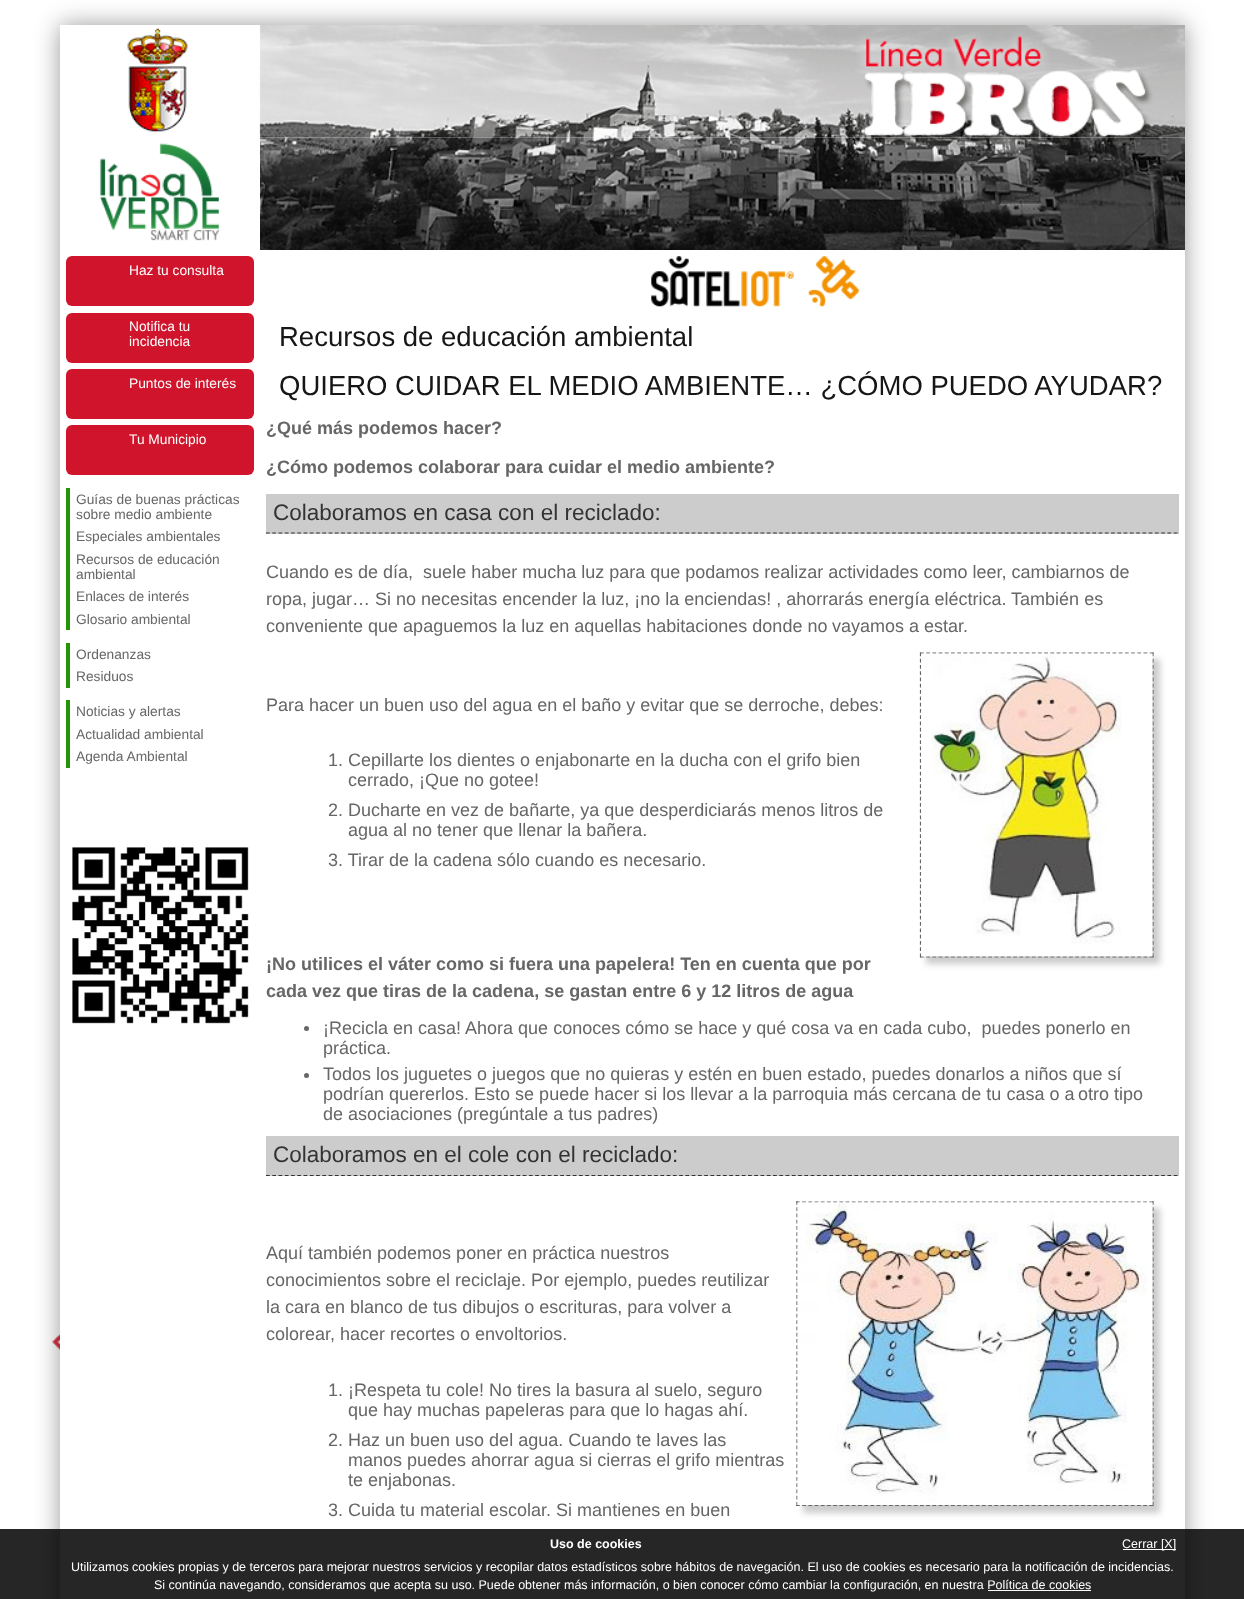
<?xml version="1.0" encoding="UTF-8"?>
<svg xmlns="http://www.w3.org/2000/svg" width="1244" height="1599">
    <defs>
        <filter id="blur1" x="-50%" y="-200%" width="200%" height="500%"><feGaussianBlur stdDeviation="12.5"/></filter>
        <filter id="blur2" x="-50%" y="-200%" width="200%" height="500%"><feGaussianBlur stdDeviation="3"/></filter>
    </defs>
    <rect width="100%" height="100%" fill="#FFFFFF"/>
    <image x="52" y="1333" width="8" height="18" href="img_01.png"/>
    <rect x="60" y="25" width="1125" height="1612" fill="#000000" fill-opacity="0.4" filter="url(#blur1)"/>
    <rect x="60" y="25" width="1125" height="1574" fill="#FFFFFF"/>
    <image x="127" y="25" width="1058" height="113" href="img_02.png"/>
    <image x="99" y="143" width="121" height="98" href="img_03.png"/>
    <image x="260" y="137" width="925" height="113" href="img_04.png"/>
    <image x="651" y="256" width="208" height="51" href="img_05.png"/>
    <rect x="66" y="256" width="188" height="50" rx="6" fill="#CF142B"/>
    <text x="129" y="275" font-family="Liberation Sans" font-size="13.75" fill="#FFFFFF">Haz tu consulta</text>
    <rect x="66" y="313" width="188" height="50" rx="6" fill="#CF142B"/>
    <text font-family="Liberation Sans" font-size="13.75" fill="#FFFFFF">
        <tspan x="129" y="331">Notifica tu</tspan>
        <tspan x="129" y="346">incidencia</tspan>
    </text>
    <rect x="66" y="369" width="188" height="50" rx="6" fill="#CF142B"/>
    <text x="129" y="388" font-family="Liberation Sans" font-size="13.75" fill="#FFFFFF">Puntos de interés</text>
    <rect x="66" y="425" width="188" height="50" rx="6" fill="#CF142B"/>
    <text x="129" y="444" font-family="Liberation Sans" font-size="13.75" fill="#FFFFFF">Tu Municipio</text>
    <rect x="66" y="488" width="4" height="142" fill="#259603"/>
    <text font-family="Liberation Sans" font-size="13.75" fill="#666666">
        <tspan x="76" y="504">Guías de buenas prácticas</tspan>
        <tspan x="76" y="519">sobre medio ambiente</tspan>
        <tspan x="76" y="541">Especiales ambientales</tspan>
        <tspan x="76" y="564">Recursos de educación</tspan>
        <tspan x="76" y="579">ambiental</tspan>
        <tspan x="76" y="601">Enlaces de interés</tspan>
        <tspan x="76" y="624">Glosario ambiental</tspan>
    </text>
    <rect x="66" y="643" width="4" height="45" fill="#259603"/>
    <text font-family="Liberation Sans" font-size="13.75" fill="#666666">
        <tspan x="76" y="659">Ordenanzas</tspan>
        <tspan x="76" y="681">Residuos</tspan>
    </text>
    <rect x="66" y="700" width="4" height="68" fill="#259603"/>
    <text font-family="Liberation Sans" font-size="13.75" fill="#666666">
        <tspan x="76" y="716">Noticias y alertas</tspan>
        <tspan x="76" y="739">Actualidad ambiental</tspan>
        <tspan x="76" y="761">Agenda Ambiental</tspan>
    </text>
    <image x="72" y="847" width="177" height="177" href="img_06.png"/>
    <text font-family="Liberation Sans" font-size="27.5" fill="#171616">
        <tspan x="279" y="346">Recursos de educación ambiental</tspan>
        <tspan x="279" y="395">QUIERO CUIDAR EL MEDIO AMBIENTE… ¿CÓMO PUEDO AYUDAR?</tspan>
    </text>
    <text x="266" y="434" font-family="Liberation Sans" font-size="18" font-weight="700" fill="#666666">¿Qué más podemos hacer?</text>
    <text x="266" y="473" font-family="Liberation Sans" font-size="18" font-weight="700" fill="#666666">¿Cómo podemos colaborar para cuidar el medio ambiente?</text>
    <rect x="266" y="494" width="913" height="40" fill="#CCCCCC"/>
    <path d="M 266 533 H 1179" fill="none" stroke="#333333" stroke-width="1.2" stroke-dasharray="3.75 2.51"/>
    <text x="273" y="520" font-family="Liberation Sans" font-size="22.5" fill="#333333">Colaboramos en casa con el reciclado:</text>
    <text font-family="Liberation Sans" font-size="18" fill="#666666" xml:space="preserve"><tspan x="266" y="578">Cuando es de día,  suele haber mucha luz para que podamos realizar actividades como leer, cambiarnos de</tspan><tspan x="266" y="605">ropa, jugar… Si no necesitas encender la luz, ¡no la enciendas! , ahorrarás energía eléctrica. También es</tspan><tspan x="266" y="632">conveniente que apaguemos la luz en aquellas habitaciones donde no</tspan></text>
    <text x="832" y="632" font-family="Liberation Sans" font-size="18" fill="#666666">vayamos a estar.</text>
    <text x="266" y="711" font-family="Liberation Sans" font-size="18" fill="#666666">Para hacer un buen uso del agua en el baño y evitar que se derroche, debes:</text>
    <rect x="926" y="659" width="234" height="305" fill="#CCCCCC" filter="url(#blur2)"/>
    <path d="M 920 653 H 1154" fill="none" stroke="#666666" stroke-width="1.2" stroke-dasharray="3.75 2.46"/>
    <path d="M 1153 652.5 V 957.5" fill="none" stroke="#666666" stroke-width="1.2" stroke-dasharray="3.75 2.52"/>
    <path d="M 920 957 H 1154" fill="none" stroke="#666666" stroke-width="1.2" stroke-dasharray="3.75 2.46"/>
    <path d="M 920.5 652.5 V 957.5" fill="none" stroke="#666666" stroke-width="1.2" stroke-dasharray="3.75 2.52"/>
    <image x="921" y="653" width="232" height="304" href="img_07.png"/>
    <text x="328" y="766" font-family="Liberation Sans" font-size="18" fill="#666666">1. Cepillarte los dientes o enjabonarte en la ducha con el grifo bien</text>
    <text x="348" y="786" font-family="Liberation Sans" font-size="18" fill="#666666">cerrado, ¡Que no gotee!</text>
    <text x="328" y="816" font-family="Liberation Sans" font-size="18" fill="#666666">2. Ducharte en vez de bañarte, ya que desperdiciarás menos litros de</text>
    <text x="348" y="836" font-family="Liberation Sans" font-size="18" fill="#666666">agua al no tener que llenar la bañera.</text>
    <text x="328" y="866" font-family="Liberation Sans" font-size="18" fill="#666666">3. Tirar de la cadena sólo cuando es necesario.</text>
    <text font-family="Liberation Sans" font-size="18" font-weight="700" fill="#666666">
        <tspan x="266" y="970">¡No utilices el váter como si fuera una papelera! Ten en cuenta que por</tspan>
        <tspan x="266" y="997">cada vez que tiras de la cadena, se gastan entre 6 y 12 litros de agua</tspan>
    </text>
    <circle cx="306.5" cy="1028.5" r="2.5" fill="#666666"/>
    <text font-family="Liberation Sans" font-size="18" fill="#666666" xml:space="preserve"><tspan x="323" y="1034">¡Recicla en casa! Ahora que conoces cómo se hace y qué cosa va en cada cubo,  puedes ponerlo en</tspan><tspan x="323" y="1054">práctica.</tspan></text>
    <circle cx="306.5" cy="1075.5" r="2.5" fill="#666666"/>
    <text font-family="Liberation Sans" font-size="18" fill="#666666">
        <tspan x="323" y="1080">Todos los juguetes o juegos que no quieras y estén en buen estado, puedes donarlos a niños que sí</tspan>
        <tspan x="323" y="1100">podrían quererlos. Esto se puede hacer si los llevar a la parroquia más cercana de tu casa o a</tspan>
    </text>
    <text x="1078" y="1100" font-family="Liberation Sans" font-size="18" fill="#666666">otro tipo</text>
    <text x="323" y="1120" font-family="Liberation Sans" font-size="18" fill="#666666">de asociaciones (pregúntale a tus padres)</text>
    <rect x="266" y="1136" width="913" height="40" fill="#CCCCCC"/>
    <path d="M 266 1175.5 H 1179" fill="none" stroke="#333333" stroke-width="1.2" stroke-dasharray="3.75 2.51"/>
    <text x="273" y="1162" font-family="Liberation Sans" font-size="22.5" fill="#333333">Colaboramos en el cole con el reciclado:</text>
    <text font-family="Liberation Sans" font-size="18" fill="#666666">
        <tspan x="266" y="1259">Aquí también podemos poner en práctica nuestros</tspan>
        <tspan x="266" y="1286">conocimientos sobre el reciclaje. Por ejemplo, puedes reutilizar</tspan>
        <tspan x="266" y="1313">la cara en blanco de tus dibujos o escrituras, para volver a</tspan>
        <tspan x="266" y="1340">colorear, hacer recortes o envoltorios.</tspan>
    </text>
    <rect x="803" y="1208" width="357" height="305" fill="#CCCCCC" filter="url(#blur2)"/>
    <path d="M 796 1202 H 1154" fill="none" stroke="#666666" stroke-width="1.2" stroke-dasharray="3.75 2.45"/>
    <path d="M 1153 1201 V 1506" fill="none" stroke="#666666" stroke-width="1.2" stroke-dasharray="3.75 2.52"/>
    <path d="M 796 1505.5 H 1154" fill="none" stroke="#666666" stroke-width="1.2" stroke-dasharray="3.75 2.45"/>
    <path d="M 797 1201 V 1506" fill="none" stroke="#666666" stroke-width="1.2" stroke-dasharray="3.75 2.52"/>
    <image x="797" y="1202" width="356" height="303" href="img_08.png"/>
    <text x="328" y="1396" font-family="Liberation Sans" font-size="18" fill="#666666">1. ¡Respeta tu cole! No tires la basura al suelo, seguro</text>
    <text x="348" y="1416" font-family="Liberation Sans" font-size="18" fill="#666666">que hay muchas papeleras para que lo hagas ahí.</text>
    <text x="328" y="1446" font-family="Liberation Sans" font-size="18" fill="#666666">2. Haz un buen uso del agua. Cuando te laves las</text>
    <text font-family="Liberation Sans" font-size="18" fill="#666666">
        <tspan x="348" y="1466">manos puedes ahorrar agua si cierras el grifo mientras</tspan>
        <tspan x="348" y="1486">te enjabonas.</tspan>
    </text>
    <text x="328" y="1516" font-family="Liberation Sans" font-size="18" fill="#666666">3. Cuida tu material escolar. Si mantienes en buen</text>
    <rect x="0" y="1529" width="1244" height="70" fill="#000000" fill-opacity="0.85"/>
    <text x="550" y="1548" font-family="Liberation Sans" font-size="12.5" font-weight="700" fill="#FFFFFF">Uso de cookies</text>
    <rect x="1123" y="1549" width="53" height="1" fill="#FFFFFF"/>
    <text x="1122" y="1548" font-family="Liberation Sans" font-size="12.5" fill="#FFFFFF">Cerrar [X]</text>
    <text x="71" y="1571" font-family="Liberation Sans" font-size="12.5" fill="#FFFFFF">Utilizamos cookies propias y de terceros para mejorar nuestros servicios y recopilar datos estadísticos sobre hábitos de navegación. El uso de cookies es necesario para la notificación de incidencias.</text>
    <text x="154" y="1589" font-family="Liberation Sans" font-size="12.5" fill="#FFFFFF">Si continúa navegando, consideramos que acepta su uso. Puede obtener más información, o bien conocer cómo cambiar la configuración, en nuestra Política de cookies</text>
    <rect x="988" y="1590" width="103" height="1" fill="#FFFFFF"/>
</svg>
